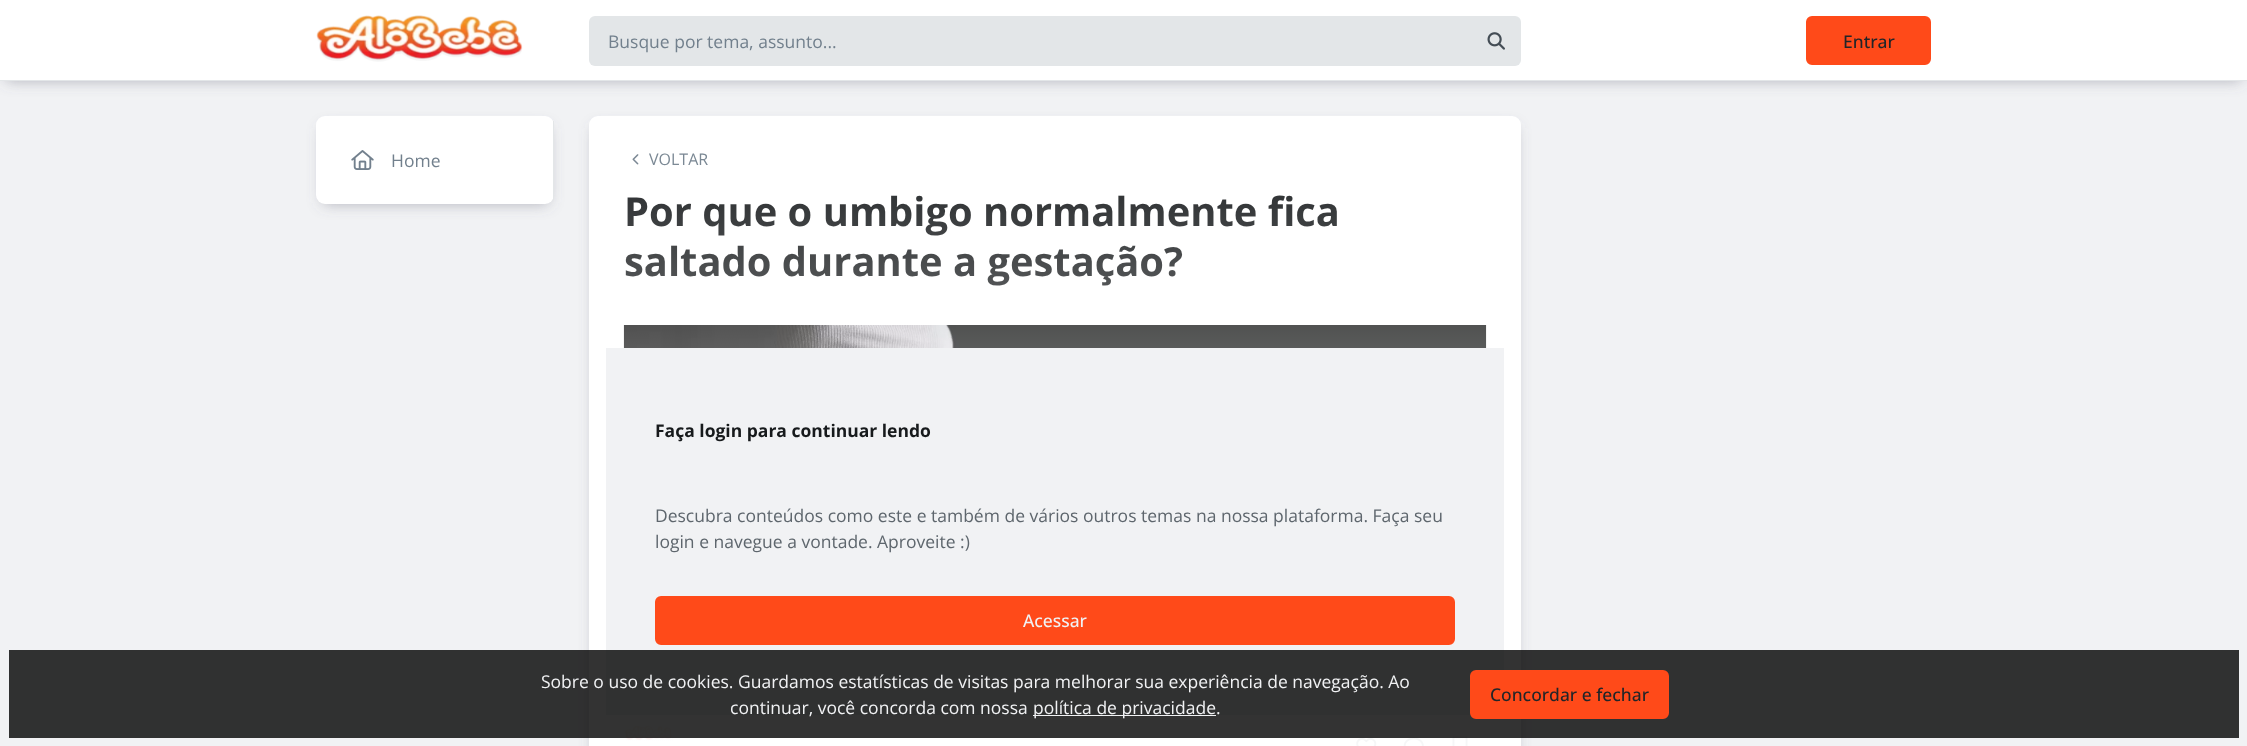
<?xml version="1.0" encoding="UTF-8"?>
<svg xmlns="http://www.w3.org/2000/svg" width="2247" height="746">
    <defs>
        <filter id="blur1" x="-50%" y="-200%" width="200%" height="500%"><feGaussianBlur stdDeviation="7.5"/></filter>
        <linearGradient id="g1" gradientUnits="userSpaceOnUse" x1="1055" y1="116" x2="1055" y2="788"><stop offset="0" stop-color="#FFFFFF" stop-opacity="0"/><stop offset="1" stop-color="#FFFFFF"/></linearGradient>
    </defs>
    <rect width="100%" height="100%" fill="#F1F2F4"/>
    <rect x="6" y="11" width="2235" height="69" fill="#646476" fill-opacity="0.5" filter="url(#blur1)"/>
    <rect x="0" y="0" width="2247" height="80" fill="#FFFFFF"/>
    <rect x="0" y="80" width="2247" height="1" fill="#E3E6E8"/>
    <image x="316" y="15" width="207" height="47" href="img_01.png"/>
    <rect x="589" y="16" width="932" height="50" rx="6" fill="#E3E6E8"/>
    <text x="608" y="48" font-family="Open Sans" font-size="17.5" fill="#72808D">Busque por tema, assunto...</text>
    <image x="1487" y="32" width="18" height="18" href="img_02.png"/>
    <rect x="1807.5" y="17.5" width="122" height="46" rx="4.5" fill="#FF4A19" stroke="#FF4A19" stroke-width="3"/>
    <text x="1843" y="48" font-family="Open Sans" font-size="17.5" font-weight="500" fill="#212529">Entrar</text>
    <rect x="323" y="128" width="225" height="75" rx="2.5" fill="#646476" fill-opacity="0.5" filter="url(#blur1)"/>
    <rect x="316" y="116" width="238" height="88" rx="9" fill="#FFFFFF"/>
    <rect x="553" y="121" width="1" height="79" fill="#E3E6E8"/>
    <image x="351" y="150" width="23" height="20" href="img_03.png"/>
    <text x="391" y="167" font-family="Open Sans" font-size="17.5" fill="#72808D">Home</text>
    <rect x="595" y="128" width="920" height="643" rx="2.5" fill="#646476" fill-opacity="0.5" filter="url(#blur1)"/>
    <rect x="589" y="116" width="932" height="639" rx="9" fill="#FFFFFF"/>
    <image x="632" y="154" width="7" height="11" href="img_04.png"/>
    <text x="649" y="165" font-family="Open Sans" font-size="16" fill="#72808D">VOLTAR</text>
    <text font-family="Open Sans" font-size="39.9" font-weight="700" fill="#171A1C">
        <tspan x="624" y="226">Por que o umbigo normalmente fica</tspan>
        <tspan x="624" y="276">saltado durante a gestação?</tspan>
    </text>
    <image x="623" y="325" width="864" height="23" href="img_05.png"/>
    <image x="624" y="715" width="49" height="26" href="img_06.png"/>
    <image x="1356" y="737" width="21" height="9" href="img_07.png"/>
    <image x="1403" y="737" width="21" height="9" href="img_08.png"/>
    <image x="1452" y="736" width="16" height="10" href="img_09.png"/>
    <rect x="623" y="153" width="864" height="593" fill="url(#g1)"/>
    <rect x="606" y="348" width="898" height="367" fill="#F1F2F4"/>
    <text x="655" y="437" font-family="Open Sans" font-size="17.5" font-weight="700" fill="#171A1C">Faça login para continuar lendo</text>
    <text font-family="Open Sans" font-size="17.5" fill="#5E666D">
        <tspan x="655" y="522">Descubra conteúdos como este e também de vários outros temas na nossa plataforma. Faça seu</tspan>
        <tspan x="655" y="548">login e navegue a vontade. Aproveite :)</tspan>
    </text>
    <rect x="656.5" y="597.5" width="797" height="46" rx="4.5" fill="#FF4A19" stroke="#FF4A19" stroke-width="3"/>
    <text x="1023" y="627" font-family="Open Sans" font-size="17.5" font-weight="500" fill="#F1F2F4">Acessar</text>
    <rect x="9" y="650" width="2230" height="88" fill="#000000" fill-opacity="0.8"/>
    <text x="541" y="688" font-family="Open Sans" font-size="17.5" fill="#F1F2F4">Sobre o uso de cookies. Guardamos estatísticas de visitas para melhorar sua experiência de navegação. Ao</text>
    <text x="730" y="714" font-family="Open Sans" font-size="17.5" fill="#F1F2F4">continuar, você concorda com nossa</text>
    <rect x="1033" y="715" width="183" height="1" fill="#F1F2F4"/>
    <text x="1033" y="714" font-family="Open Sans" font-size="17.5" fill="#F1F2F4">política de privacidade.</text>
    <rect x="1471.5" y="671.5" width="196" height="46" rx="4.5" fill="#FF4A19" stroke="#FF4A19" stroke-width="3"/>
    <text x="1490" y="701" font-family="Open Sans" font-size="17.5" font-weight="500" fill="#212529">Concordar e fechar</text>
</svg>
